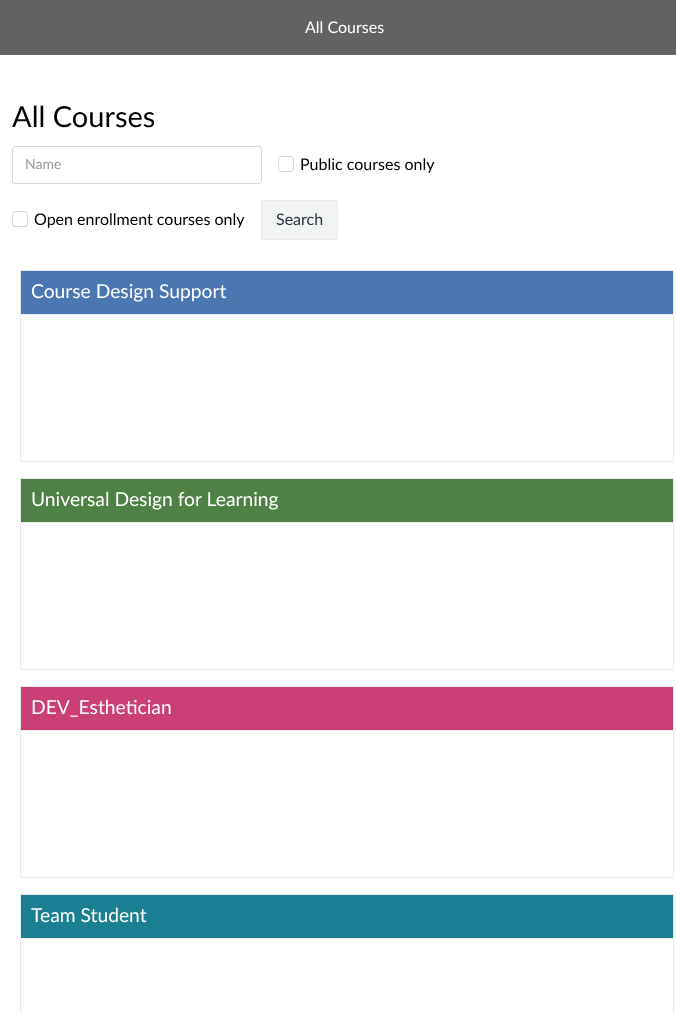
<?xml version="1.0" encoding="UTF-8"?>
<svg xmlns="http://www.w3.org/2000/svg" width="676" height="1013">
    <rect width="100%" height="100%" fill="#FFFFFF"/>
    <rect x="0" y="0" width="676" height="55" fill="#626262"/>
    <text x="305" y="33" font-family="Lato" font-size="16" fill="#FFFFFF">All Courses</text>
    <text x="12" y="127" font-family="Lato" font-size="29" fill="#000000">All Courses</text>
    <rect x="12.5" y="146.5" width="249" height="37" rx="2.5" fill="none" stroke="#D0DAE2"/>
    <text x="25" y="169" font-family="Lato" font-size="14" fill="#999999">Name</text>
    <rect x="278.5" y="156.5" width="15" height="15" rx="2.5" fill="none" stroke="#D0DAE2"/>
    <text x="300" y="170" font-family="Lato" font-size="16" fill="#000000">Public courses only</text>
    <rect x="12.5" y="211.5" width="15" height="15" rx="2.5" fill="none" stroke="#D0DAE2"/>
    <text x="34" y="225" font-family="Lato" font-size="16" fill="#000000">Open enrollment courses only</text>
    <rect x="261.5" y="200.5" width="76" height="39" rx="2.5" fill="#F2F4F4" stroke="#E8EAEC"/>
    <text x="276" y="225" font-family="Lato" font-size="16" fill="#273540">Search</text>
    <rect x="20.5" y="270.5" width="653" height="191" fill="none" stroke="#E8EAEC"/>
    <rect x="21" y="271" width="652" height="43" fill="#4A76B2"/>
    <rect x="21" y="314" width="652" height="1" fill="#E8EAEC"/>
    <text x="31" y="298" font-family="Lato" font-size="19.25" fill="#FFFFFF">Course Design Support</text>
    <rect x="20.5" y="478.5" width="653" height="191" fill="none" stroke="#E8EAEC"/>
    <rect x="21" y="479" width="652" height="43" fill="#4F8045"/>
    <rect x="21" y="522" width="652" height="1" fill="#E8EAEC"/>
    <text x="31" y="506" font-family="Lato" font-size="19.25" fill="#FFFFFF">Universal Design for Learning</text>
    <rect x="20.5" y="686.5" width="653" height="191" fill="none" stroke="#E8EAEC"/>
    <rect x="21" y="687" width="652" height="43" fill="#CB3F77"/>
    <rect x="21" y="730" width="652" height="1" fill="#E8EAEC"/>
    <text x="31" y="714" font-family="Lato" font-size="19.25" fill="#FFFFFF">DEV_Esthetician</text>
    <rect x="20.5" y="894.5" width="653" height="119" fill="none" stroke="#E8EAEC"/>
    <rect x="21" y="895" width="652" height="43" fill="#1A7F93"/>
    <rect x="21" y="938" width="652" height="1" fill="#E8EAEC"/>
    <text x="31" y="922" font-family="Lato" font-size="19.25" fill="#FFFFFF">Team Student</text>
</svg>
